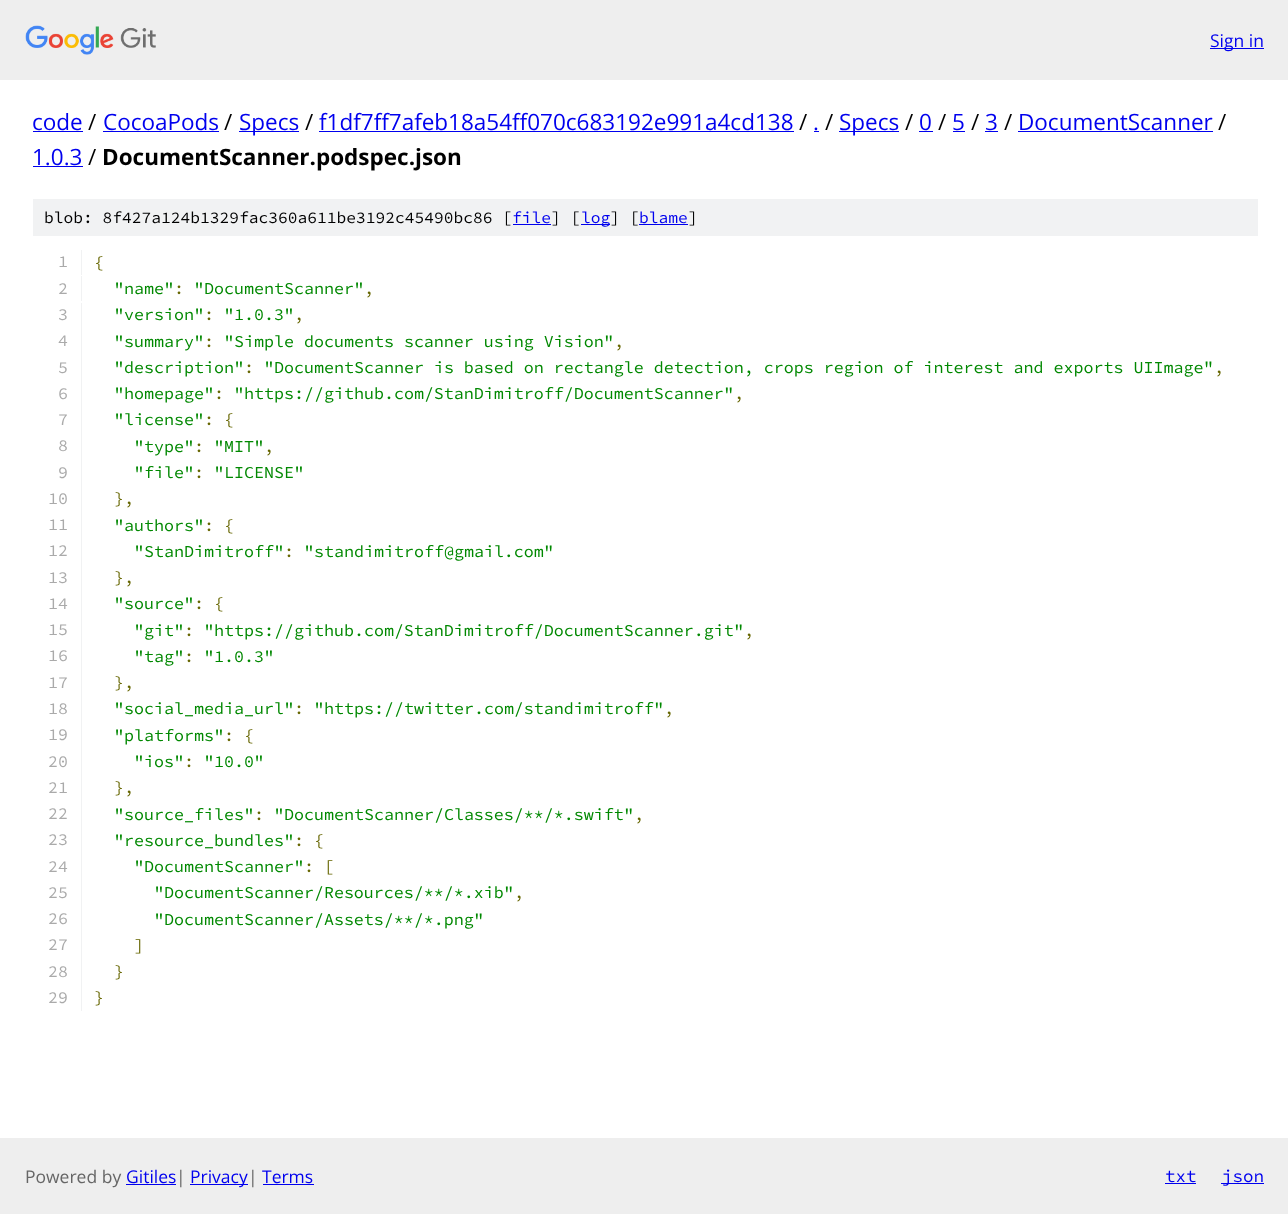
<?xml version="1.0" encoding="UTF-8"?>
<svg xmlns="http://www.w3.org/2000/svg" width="1288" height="1214">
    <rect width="100%" height="100%" fill="#FFFFFF"/>
    <rect x="0" y="0" width="1288" height="80" fill="#EEEEEE"/>
    <image x="25" y="25" width="131" height="30" href="img_01.png"/>
    <rect x="1210" y="48" width="54" height="1" fill="#0000EE"/>
    <text x="1210" y="47" font-family="Open Sans" font-size="17.5" fill="#0000EE">Sign in</text>
    <text x="32" y="130" font-family="Open Sans" font-size="22.5" fill="#0000EE">code</text>
    <rect x="33" y="131" width="50" height="1" fill="#0000EE"/>
    <text x="88" y="130" font-family="Open Sans" font-size="22.5" fill="#000000">/</text>
    <text x="103" y="130" font-family="Open Sans" font-size="22.5" fill="#0000EE">CocoaPods</text>
    <rect x="103" y="131" width="116" height="1" fill="#0000EE"/>
    <text x="224" y="130" font-family="Open Sans" font-size="22.5" fill="#000000">/</text>
    <rect x="239" y="131" width="60" height="1" fill="#0000EE"/>
    <text x="239" y="130" font-family="Open Sans" font-size="22.5" fill="#0000EE">Specs</text>
    <text x="305" y="130" font-family="Open Sans" font-size="22.5" fill="#000000">/</text>
    <text x="319" y="130" font-family="Open Sans" font-size="22.5" fill="#0000EE">f1df7ff7afeb18a54ff070c683192e991a4cd138</text>
    <rect x="319" y="131" width="475" height="1" fill="#0000EE"/>
    <text x="799" y="130" font-family="Open Sans" font-size="22.5" fill="#000000">/</text>
    <text x="813" y="130" font-family="Open Sans" font-size="22.5" fill="#0000EE">.</text>
    <rect x="814" y="131" width="5" height="1" fill="#0000EE"/>
    <text x="825" y="130" font-family="Open Sans" font-size="22.5" fill="#000000">/</text>
    <rect x="839" y="131" width="60" height="1" fill="#0000EE"/>
    <text x="839" y="130" font-family="Open Sans" font-size="22.5" fill="#0000EE">Specs</text>
    <text x="905" y="130" font-family="Open Sans" font-size="22.5" fill="#000000">/</text>
    <text x="919" y="130" font-family="Open Sans" font-size="22.5" fill="#0000EE">0</text>
    <rect x="919" y="131" width="14" height="1" fill="#0000EE"/>
    <text x="938" y="130" font-family="Open Sans" font-size="22.5" fill="#000000">/</text>
    <text x="952" y="130" font-family="Open Sans" font-size="22.5" fill="#0000EE">5</text>
    <rect x="953" y="131" width="12" height="1" fill="#0000EE"/>
    <text x="971" y="130" font-family="Open Sans" font-size="22.5" fill="#000000">/</text>
    <text x="985" y="130" font-family="Open Sans" font-size="22.5" fill="#0000EE">3</text>
    <rect x="985" y="131" width="13" height="1" fill="#0000EE"/>
    <text x="1004" y="130" font-family="Open Sans" font-size="22.5" fill="#000000">/</text>
    <text x="1018" y="130" font-family="Open Sans" font-size="22.5" fill="#0000EE">DocumentScanner</text>
    <rect x="1018" y="131" width="195" height="1" fill="#0000EE"/>
    <text x="1218" y="130" font-family="Open Sans" font-size="22.5" fill="#000000">/</text>
    <text x="32" y="165" font-family="Open Sans" font-size="22.5" fill="#0000EE">1.0.3</text>
    <rect x="33" y="166" width="50" height="1" fill="#0000EE"/>
    <text x="88" y="165" font-family="Open Sans" font-size="22.5" fill="#000000">/</text>
    <text x="102" y="165" font-family="Open Sans" font-size="22.5" font-weight="700" fill="#000000">DocumentScanner.podspec.json</text>
    <rect x="33" y="199" width="1225" height="37" fill="#F1F2F3"/>
    <text x="44" y="223" font-family="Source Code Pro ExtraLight" font-size="16.25" font-weight="200" fill="#000000">blob: 8f427a124b1329fac360a611be3192c45490bc86 [</text>
    <text x="512" y="223" font-family="Source Code Pro ExtraLight" font-size="16.25" font-weight="200" fill="#0000EE">file</text>
    <rect x="513" y="224" width="38" height="1" fill="#0000EE"/>
    <text x="551" y="223" font-family="Source Code Pro ExtraLight" font-size="16.25" font-weight="200" fill="#000000">] [</text>
    <rect x="581" y="224" width="29" height="1" fill="#0000EE"/>
    <text x="581" y="223" font-family="Source Code Pro ExtraLight" font-size="16.25" font-weight="200" fill="#0000EE">log</text>
    <text x="610" y="223" font-family="Source Code Pro ExtraLight" font-size="16.25" font-weight="200" fill="#000000">] [</text>
    <text x="639" y="223" font-family="Source Code Pro ExtraLight" font-size="16.25" font-weight="200" fill="#0000EE">blame</text>
    <rect x="639" y="224" width="49" height="1" fill="#0000EE"/>
    <text x="688" y="223" font-family="Source Code Pro ExtraLight" font-size="16.25" font-weight="200" fill="#000000">]</text>
    <rect x="81" y="250" width="1" height="25" fill="#F1F2F3"/>
    <text x="58" y="267" font-family="Source Code Pro ExtraLight" font-size="16.67" font-weight="200" fill="#AAAAAA">1</text>
    <text x="94" y="268" font-family="Source Code Pro ExtraLight" font-size="16.67" font-weight="200" fill="#666600">{</text>
    <rect x="81" y="276" width="1" height="25" fill="#F1F2F3"/>
    <text x="58" y="294" font-family="Source Code Pro ExtraLight" font-size="16.67" font-weight="200" fill="#AAAAAA">2</text>
    <text x="114" y="294" font-family="Source Code Pro ExtraLight" font-size="16.67" font-weight="200" fill="#008800">"name"</text>
    <text x="174" y="294" font-family="Source Code Pro ExtraLight" font-size="16.67" font-weight="200" fill="#666600">:</text>
    <text x="194" y="294" font-family="Source Code Pro ExtraLight" font-size="16.67" font-weight="200" fill="#008800">"DocumentScanner"</text>
    <text x="364" y="294" font-family="Source Code Pro ExtraLight" font-size="16.67" font-weight="200" fill="#666600">,</text>
    <rect x="81" y="303" width="1" height="708" fill="#F1F2F3"/>
    <text x="58" y="320" font-family="Source Code Pro ExtraLight" font-size="16.67" font-weight="200" fill="#AAAAAA">3</text>
    <text x="114" y="320" font-family="Source Code Pro ExtraLight" font-size="16.67" font-weight="200" fill="#008800">"version"</text>
    <text x="204" y="320" font-family="Source Code Pro ExtraLight" font-size="16.67" font-weight="200" fill="#666600">:</text>
    <text x="224" y="320" font-family="Source Code Pro ExtraLight" font-size="16.67" font-weight="200" fill="#008800">"1.0.3"</text>
    <text x="294" y="320" font-family="Source Code Pro ExtraLight" font-size="16.67" font-weight="200" fill="#666600">,</text>
    <text x="58" y="346" font-family="Source Code Pro ExtraLight" font-size="16.67" font-weight="200" fill="#AAAAAA">4</text>
    <text x="114" y="347" font-family="Source Code Pro ExtraLight" font-size="16.67" font-weight="200" fill="#008800">"summary"</text>
    <text x="204" y="347" font-family="Source Code Pro ExtraLight" font-size="16.67" font-weight="200" fill="#666600">:</text>
    <text x="224" y="347" font-family="Source Code Pro ExtraLight" font-size="16.67" font-weight="200" fill="#008800">"Simple documents scanner using Vision"</text>
    <text x="614" y="347" font-family="Source Code Pro ExtraLight" font-size="16.67" font-weight="200" fill="#666600">,</text>
    <text x="58" y="373" font-family="Source Code Pro ExtraLight" font-size="16.67" font-weight="200" fill="#AAAAAA">5</text>
    <text x="114" y="373" font-family="Source Code Pro ExtraLight" font-size="16.67" font-weight="200" fill="#008800">"description"</text>
    <text x="244" y="373" font-family="Source Code Pro ExtraLight" font-size="16.67" font-weight="200" fill="#666600">:</text>
    <text x="264" y="373" font-family="Source Code Pro ExtraLight" font-size="16.67" font-weight="200" fill="#008800">"DocumentScanner is based on rectangle detection, crops region of interest and exports UIImage"</text>
    <text x="1214" y="373" font-family="Source Code Pro ExtraLight" font-size="16.67" font-weight="200" fill="#666600">,</text>
    <text x="58" y="399" font-family="Source Code Pro ExtraLight" font-size="16.67" font-weight="200" fill="#AAAAAA">6</text>
    <text x="114" y="399" font-family="Source Code Pro ExtraLight" font-size="16.67" font-weight="200" fill="#008800">"homepage"</text>
    <text x="214" y="399" font-family="Source Code Pro ExtraLight" font-size="16.67" font-weight="200" fill="#666600">:</text>
    <text x="234" y="399" font-family="Source Code Pro ExtraLight" font-size="16.67" font-weight="200" fill="#008800">"https://github.com/StanDimitroff/DocumentScanner"</text>
    <text x="734" y="399" font-family="Source Code Pro ExtraLight" font-size="16.67" font-weight="200" fill="#666600">,</text>
    <text x="58" y="425" font-family="Source Code Pro ExtraLight" font-size="16.67" font-weight="200" fill="#AAAAAA">7</text>
    <text x="114" y="425" font-family="Source Code Pro ExtraLight" font-size="16.67" font-weight="200" fill="#008800">"license"</text>
    <text x="204" y="425" font-family="Source Code Pro ExtraLight" font-size="16.67" font-weight="200" fill="#666600">: {</text>
    <text x="58" y="451" font-family="Source Code Pro ExtraLight" font-size="16.67" font-weight="200" fill="#AAAAAA">8</text>
    <text x="134" y="452" font-family="Source Code Pro ExtraLight" font-size="16.67" font-weight="200" fill="#008800">"type"</text>
    <text x="194" y="452" font-family="Source Code Pro ExtraLight" font-size="16.67" font-weight="200" fill="#666600">:</text>
    <text x="214" y="452" font-family="Source Code Pro ExtraLight" font-size="16.67" font-weight="200" fill="#008800">"MIT"</text>
    <text x="264" y="452" font-family="Source Code Pro ExtraLight" font-size="16.67" font-weight="200" fill="#666600">,</text>
    <text x="58" y="478" font-family="Source Code Pro ExtraLight" font-size="16.67" font-weight="200" fill="#AAAAAA">9</text>
    <text x="134" y="478" font-family="Source Code Pro ExtraLight" font-size="16.67" font-weight="200" fill="#008800">"file"</text>
    <text x="194" y="478" font-family="Source Code Pro ExtraLight" font-size="16.67" font-weight="200" fill="#666600">:</text>
    <text x="214" y="478" font-family="Source Code Pro ExtraLight" font-size="16.67" font-weight="200" fill="#008800">"LICENSE"</text>
    <text x="48" y="504" font-family="Source Code Pro ExtraLight" font-size="16.67" font-weight="200" fill="#AAAAAA">10</text>
    <text x="114" y="504" font-family="Source Code Pro ExtraLight" font-size="16.67" font-weight="200" fill="#666600">},</text>
    <text x="48" y="530" font-family="Source Code Pro ExtraLight" font-size="16.67" font-weight="200" fill="#AAAAAA">11</text>
    <text x="114" y="531" font-family="Source Code Pro ExtraLight" font-size="16.67" font-weight="200" fill="#008800">"authors"</text>
    <text x="204" y="531" font-family="Source Code Pro ExtraLight" font-size="16.67" font-weight="200" fill="#666600">: {</text>
    <text x="48" y="556" font-family="Source Code Pro ExtraLight" font-size="16.67" font-weight="200" fill="#AAAAAA">12</text>
    <text x="134" y="557" font-family="Source Code Pro ExtraLight" font-size="16.67" font-weight="200" fill="#008800">"StanDimitroff"</text>
    <text x="284" y="557" font-family="Source Code Pro ExtraLight" font-size="16.67" font-weight="200" fill="#666600">:</text>
    <text x="304" y="557" font-family="Source Code Pro ExtraLight" font-size="16.67" font-weight="200" fill="#008800">"standimitroff@gmail.com"</text>
    <text x="48" y="583" font-family="Source Code Pro ExtraLight" font-size="16.67" font-weight="200" fill="#AAAAAA">13</text>
    <text x="114" y="583" font-family="Source Code Pro ExtraLight" font-size="16.67" font-weight="200" fill="#666600">},</text>
    <text x="48" y="609" font-family="Source Code Pro ExtraLight" font-size="16.67" font-weight="200" fill="#AAAAAA">14</text>
    <text x="114" y="609" font-family="Source Code Pro ExtraLight" font-size="16.67" font-weight="200" fill="#008800">"source"</text>
    <text x="194" y="609" font-family="Source Code Pro ExtraLight" font-size="16.67" font-weight="200" fill="#666600">: {</text>
    <text x="48" y="635" font-family="Source Code Pro ExtraLight" font-size="16.67" font-weight="200" fill="#AAAAAA">15</text>
    <text x="134" y="636" font-family="Source Code Pro ExtraLight" font-size="16.67" font-weight="200" fill="#008800">"git"</text>
    <text x="184" y="636" font-family="Source Code Pro ExtraLight" font-size="16.67" font-weight="200" fill="#666600">:</text>
    <text x="204" y="636" font-family="Source Code Pro ExtraLight" font-size="16.67" font-weight="200" fill="#008800">"https://github.com/StanDimitroff/DocumentScanner.git"</text>
    <text x="744" y="636" font-family="Source Code Pro ExtraLight" font-size="16.67" font-weight="200" fill="#666600">,</text>
    <text x="48" y="661" font-family="Source Code Pro ExtraLight" font-size="16.67" font-weight="200" fill="#AAAAAA">16</text>
    <text x="134" y="662" font-family="Source Code Pro ExtraLight" font-size="16.67" font-weight="200" fill="#008800">"tag"</text>
    <text x="184" y="662" font-family="Source Code Pro ExtraLight" font-size="16.67" font-weight="200" fill="#666600">:</text>
    <text x="204" y="662" font-family="Source Code Pro ExtraLight" font-size="16.67" font-weight="200" fill="#008800">"1.0.3"</text>
    <text x="48" y="688" font-family="Source Code Pro ExtraLight" font-size="16.67" font-weight="200" fill="#AAAAAA">17</text>
    <text x="114" y="688" font-family="Source Code Pro ExtraLight" font-size="16.67" font-weight="200" fill="#666600">},</text>
    <text x="48" y="714" font-family="Source Code Pro ExtraLight" font-size="16.67" font-weight="200" fill="#AAAAAA">18</text>
    <text x="114" y="714" font-family="Source Code Pro ExtraLight" font-size="16.67" font-weight="200" fill="#008800">"social_media_url"</text>
    <text x="294" y="714" font-family="Source Code Pro ExtraLight" font-size="16.67" font-weight="200" fill="#666600">:</text>
    <text x="314" y="714" font-family="Source Code Pro ExtraLight" font-size="16.67" font-weight="200" fill="#008800">"https://twitter.com/standimitroff"</text>
    <text x="664" y="714" font-family="Source Code Pro ExtraLight" font-size="16.67" font-weight="200" fill="#666600">,</text>
    <text x="48" y="740" font-family="Source Code Pro ExtraLight" font-size="16.67" font-weight="200" fill="#AAAAAA">19</text>
    <text x="114" y="741" font-family="Source Code Pro ExtraLight" font-size="16.67" font-weight="200" fill="#008800">"platforms"</text>
    <text x="224" y="741" font-family="Source Code Pro ExtraLight" font-size="16.67" font-weight="200" fill="#666600">: {</text>
    <text x="48" y="767" font-family="Source Code Pro ExtraLight" font-size="16.67" font-weight="200" fill="#AAAAAA">20</text>
    <text x="134" y="767" font-family="Source Code Pro ExtraLight" font-size="16.67" font-weight="200" fill="#008800">"ios"</text>
    <text x="184" y="767" font-family="Source Code Pro ExtraLight" font-size="16.67" font-weight="200" fill="#666600">:</text>
    <text x="204" y="767" font-family="Source Code Pro ExtraLight" font-size="16.67" font-weight="200" fill="#008800">"10.0"</text>
    <text x="48" y="793" font-family="Source Code Pro ExtraLight" font-size="16.67" font-weight="200" fill="#AAAAAA">21</text>
    <text x="114" y="793" font-family="Source Code Pro ExtraLight" font-size="16.67" font-weight="200" fill="#666600">},</text>
    <text x="48" y="819" font-family="Source Code Pro ExtraLight" font-size="16.67" font-weight="200" fill="#AAAAAA">22</text>
    <text x="114" y="820" font-family="Source Code Pro ExtraLight" font-size="16.67" font-weight="200" fill="#008800">"source_files"</text>
    <text x="254" y="820" font-family="Source Code Pro ExtraLight" font-size="16.67" font-weight="200" fill="#666600">:</text>
    <text x="274" y="820" font-family="Source Code Pro ExtraLight" font-size="16.67" font-weight="200" fill="#008800">"DocumentScanner/Classes/**/*.swift"</text>
    <text x="634" y="820" font-family="Source Code Pro ExtraLight" font-size="16.67" font-weight="200" fill="#666600">,</text>
    <text x="48" y="845" font-family="Source Code Pro ExtraLight" font-size="16.67" font-weight="200" fill="#AAAAAA">23</text>
    <text x="114" y="846" font-family="Source Code Pro ExtraLight" font-size="16.67" font-weight="200" fill="#008800">"resource_bundles"</text>
    <text x="294" y="846" font-family="Source Code Pro ExtraLight" font-size="16.67" font-weight="200" fill="#666600">: {</text>
    <text x="48" y="872" font-family="Source Code Pro ExtraLight" font-size="16.67" font-weight="200" fill="#AAAAAA">24</text>
    <text x="134" y="872" font-family="Source Code Pro ExtraLight" font-size="16.67" font-weight="200" fill="#008800">"DocumentScanner"</text>
    <text x="304" y="872" font-family="Source Code Pro ExtraLight" font-size="16.67" font-weight="200" fill="#666600">: [</text>
    <text x="48" y="898" font-family="Source Code Pro ExtraLight" font-size="16.67" font-weight="200" fill="#AAAAAA">25</text>
    <text x="154" y="898" font-family="Source Code Pro ExtraLight" font-size="16.67" font-weight="200" fill="#008800">"DocumentScanner/Resources/**/*.xib"</text>
    <text x="514" y="898" font-family="Source Code Pro ExtraLight" font-size="16.67" font-weight="200" fill="#666600">,</text>
    <text x="48" y="924" font-family="Source Code Pro ExtraLight" font-size="16.67" font-weight="200" fill="#AAAAAA">26</text>
    <text x="154" y="925" font-family="Source Code Pro ExtraLight" font-size="16.67" font-weight="200" fill="#008800">"DocumentScanner/Assets/**/*.png"</text>
    <text x="48" y="950" font-family="Source Code Pro ExtraLight" font-size="16.67" font-weight="200" fill="#AAAAAA">27</text>
    <text x="134" y="951" font-family="Source Code Pro ExtraLight" font-size="16.67" font-weight="200" fill="#666600">]</text>
    <text x="48" y="977" font-family="Source Code Pro ExtraLight" font-size="16.67" font-weight="200" fill="#AAAAAA">28</text>
    <text x="114" y="977" font-family="Source Code Pro ExtraLight" font-size="16.67" font-weight="200" fill="#666600">}</text>
    <text x="48" y="1003" font-family="Source Code Pro ExtraLight" font-size="16.67" font-weight="200" fill="#AAAAAA">29</text>
    <text x="94" y="1003" font-family="Source Code Pro ExtraLight" font-size="16.67" font-weight="200" fill="#666600">}</text>
    <rect x="0" y="1138" width="1288" height="76" fill="#EEEEEE"/>
    <text x="25" y="1183" font-family="Open Sans" font-size="17.5" fill="#666666">Powered by</text>
    <text x="126" y="1183" font-family="Open Sans" font-size="17.5" fill="#0000EE">Gitiles</text>
    <rect x="126" y="1184" width="50" height="1" fill="#0000EE"/>
    <text x="176" y="1183" font-family="Open Sans" font-size="17.5" fill="#666666">|</text>
    <rect x="190" y="1184" width="58" height="1" fill="#0000EE"/>
    <text x="190" y="1183" font-family="Open Sans" font-size="17.5" fill="#0000EE">Privacy</text>
    <text x="248" y="1183" font-family="Open Sans" font-size="17.5" fill="#666666">|</text>
    <text x="262" y="1183" font-family="Open Sans" font-size="17.5" fill="#0000EE">Terms</text>
    <rect x="263" y="1184" width="51" height="1" fill="#0000EE"/>
    <text x="1165" y="1182" font-family="Source Code Pro ExtraLight" font-size="17.5" font-weight="200" fill="#0000EE">txt</text>
    <rect x="1165" y="1183" width="31" height="1" fill="#0000EE"/>
    <rect x="1221" y="1183" width="43" height="1" fill="#0000EE"/>
    <text x="1222" y="1182" font-family="Source Code Pro ExtraLight" font-size="17.5" font-weight="200" fill="#0000EE">json</text>
</svg>
